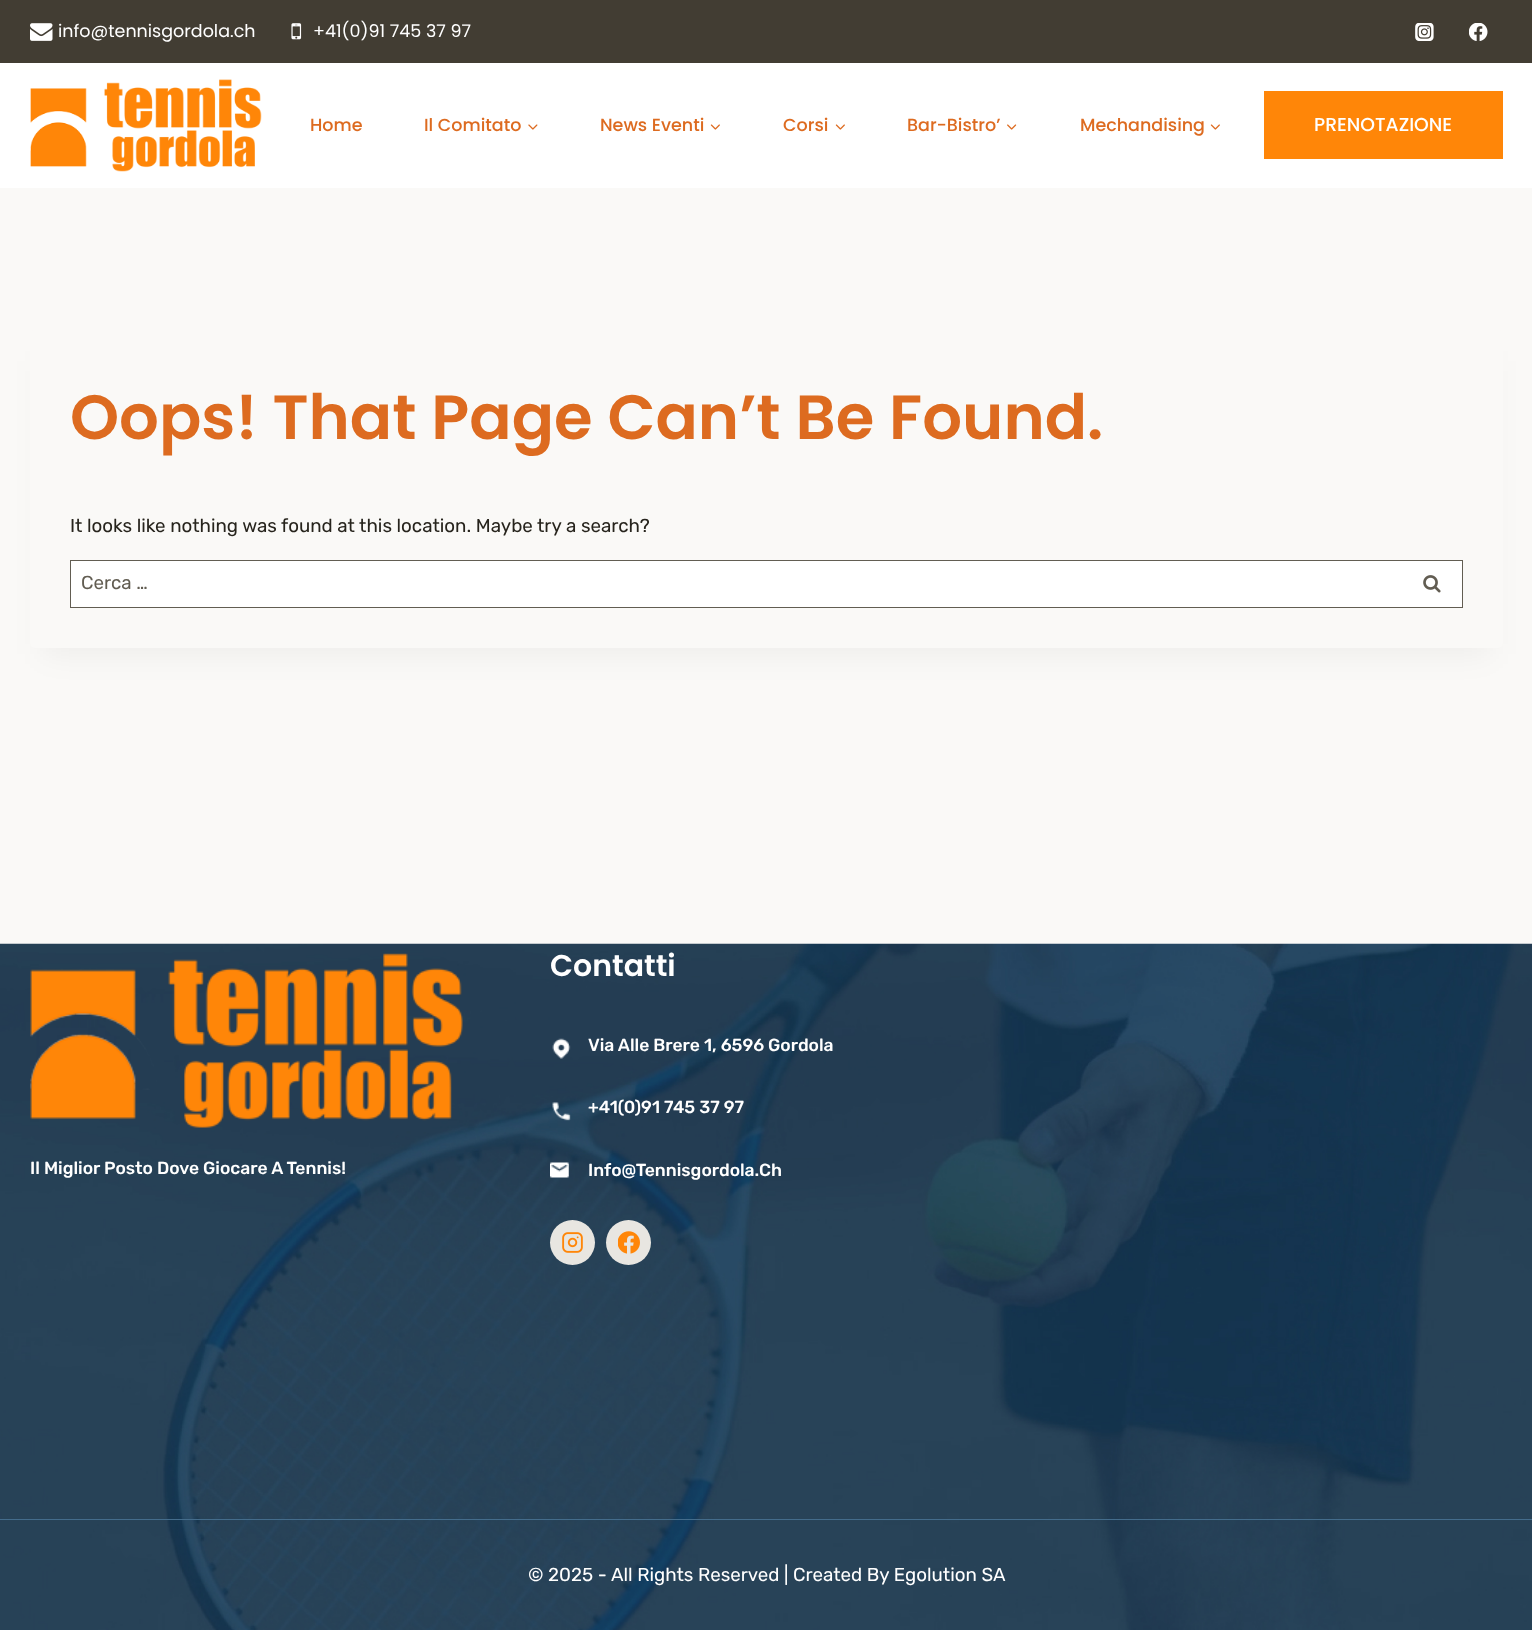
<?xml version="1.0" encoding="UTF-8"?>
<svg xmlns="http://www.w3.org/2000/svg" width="1532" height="1630">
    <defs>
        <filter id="blur1" x="-50%" y="-200%" width="200%" height="500%"><feGaussianBlur stdDeviation="15.5"/></filter>
    </defs>
    <rect width="100%" height="100%" fill="#FAF9F7"/>
    <rect x="0" y="0" width="1532" height="63" fill="#423D33"/>
    <image x="30" y="23" width="23" height="18" href="img_01.png"/>
    <text x="58" y="37" font-family="Poppins" font-size="17.5" fill="#FFFFFF">info@tennisgordola.ch</text>
    <image x="291" y="23" width="11" height="17" href="img_02.png"/>
    <text x="313" y="37" font-family="Poppins" font-size="17.5" fill="#FFFFFF">+41(0)91 745 37 97</text>
    <image x="1415" y="23" width="19" height="18" href="img_03.png"/>
    <image x="1469" y="23" width="19" height="18" href="img_04.png"/>
    <rect x="0" y="63" width="1532" height="125" fill="#FFFFFF"/>
    <image x="30" y="79" width="232" height="93" href="img_05.png"/>
    <text x="310" y="131" font-family="Poppins" font-size="17.5" font-weight="500" fill="#DD6B20">Home</text>
    <text x="424" y="131" font-family="Poppins" font-size="17.5" font-weight="500" fill="#DD6B20">Il Comitato</text>
    <image x="528" y="124" width="10" height="6" href="img_06.png"/>
    <text x="600" y="131" font-family="Poppins" font-size="17.5" font-weight="500" fill="#DD6B20">News Eventi</text>
    <image x="710" y="124" width="10" height="6" href="img_07.png"/>
    <text x="783" y="131" font-family="Poppins" font-size="17.5" font-weight="500" fill="#DD6B20">Corsi</text>
    <image x="835" y="124" width="10" height="6" href="img_07.png"/>
    <text x="907" y="131" font-family="Poppins" font-size="17.5" font-weight="500" fill="#DD6B20">Bar-Bistro’</text>
    <image x="1007" y="124" width="10" height="6" href="img_08.png"/>
    <text x="1080" y="131" font-family="Poppins" font-size="17.5" font-weight="500" fill="#DD6B20">Mechandising</text>
    <image x="1210" y="124" width="10" height="6" href="img_07.png"/>
    <rect x="1264" y="91" width="239" height="68" fill="#FF8608"/>
    <text x="1314" y="131" font-family="Poppins" font-size="18.75" font-weight="500" fill="#FFFFFF">PRENOTAZIONE</text>
    <rect x="43" y="361" width="1447" height="293" fill="#000000" fill-opacity="0.05" filter="url(#blur1)"/>
    <rect x="30" y="330" width="1473" height="318" rx="5" fill="#FAF9F7"/>
    <text x="70" y="439" font-family="Poppins" font-size="62.5" font-weight="600" fill="#DD6B20">Oops! That Page Can’t Be Found.</text>
    <text x="70" y="532" font-family="Rubik" font-size="18.75" fill="#27241D">It looks like nothing was found at this location. Maybe try a search?</text>
    <rect x="70.5" y="560.5" width="1392" height="47" fill="#FFFFFF" stroke="#625D52"/>
    <text x="81" y="589" font-family="Rubik" font-size="18.75" fill="#625D52">Cerca …</text>
    <image x="1423" y="575" width="18" height="18" href="img_09.png"/>
    <image x="0" y="943" width="1532" height="687" href="img_10.png"/>
    <image x="30" y="953" width="433" height="175" href="img_11.png"/>
    <text x="30" y="1174" font-family="Rubik" font-size="17.5" font-weight="500" fill="#FFFFFF">Il Miglior Posto Dove Giocare A Tennis!</text>
    <text x="550" y="976" font-family="Poppins" font-size="30" font-weight="600" fill="#FFFFFF">Contatti</text>
    <image x="552" y="1038" width="19" height="21" href="img_12.png"/>
    <text x="588" y="1051" font-family="Rubik" font-size="17.5" font-weight="500" fill="#FFFFFF">Via Alle Brere 1, 6596 Gordola</text>
    <image x="552" y="1102" width="19" height="19" href="img_13.png"/>
    <text x="588" y="1113" font-family="Rubik" font-size="17.5" font-weight="500" fill="#FFFFFF">+41(0)91 745 37 97</text>
    <image x="550" y="1162" width="19" height="16" href="img_14.png"/>
    <text x="588" y="1176" font-family="Rubik" font-size="17.5" font-weight="500" fill="#FFFFFF">Info@Tennisgordola.Ch</text>
    <circle cx="572.5" cy="1242.5" r="22.5" fill="#E8E6E1"/>
    <image x="562" y="1232" width="21" height="21" href="img_15.png"/>
    <circle cx="628.5" cy="1242.5" r="22.5" fill="#E8E6E1"/>
    <image x="618" y="1231" width="22" height="23" href="img_16.png"/>
    <rect x="0" y="1519" width="1532" height="1" fill="#446C8B"/>
    <text x="528" y="1581" font-family="Rubik" font-size="18.75" fill="#FFFFFF">© 2025 - All Rights Reserved | Created By Egolution SA</text>
</svg>
